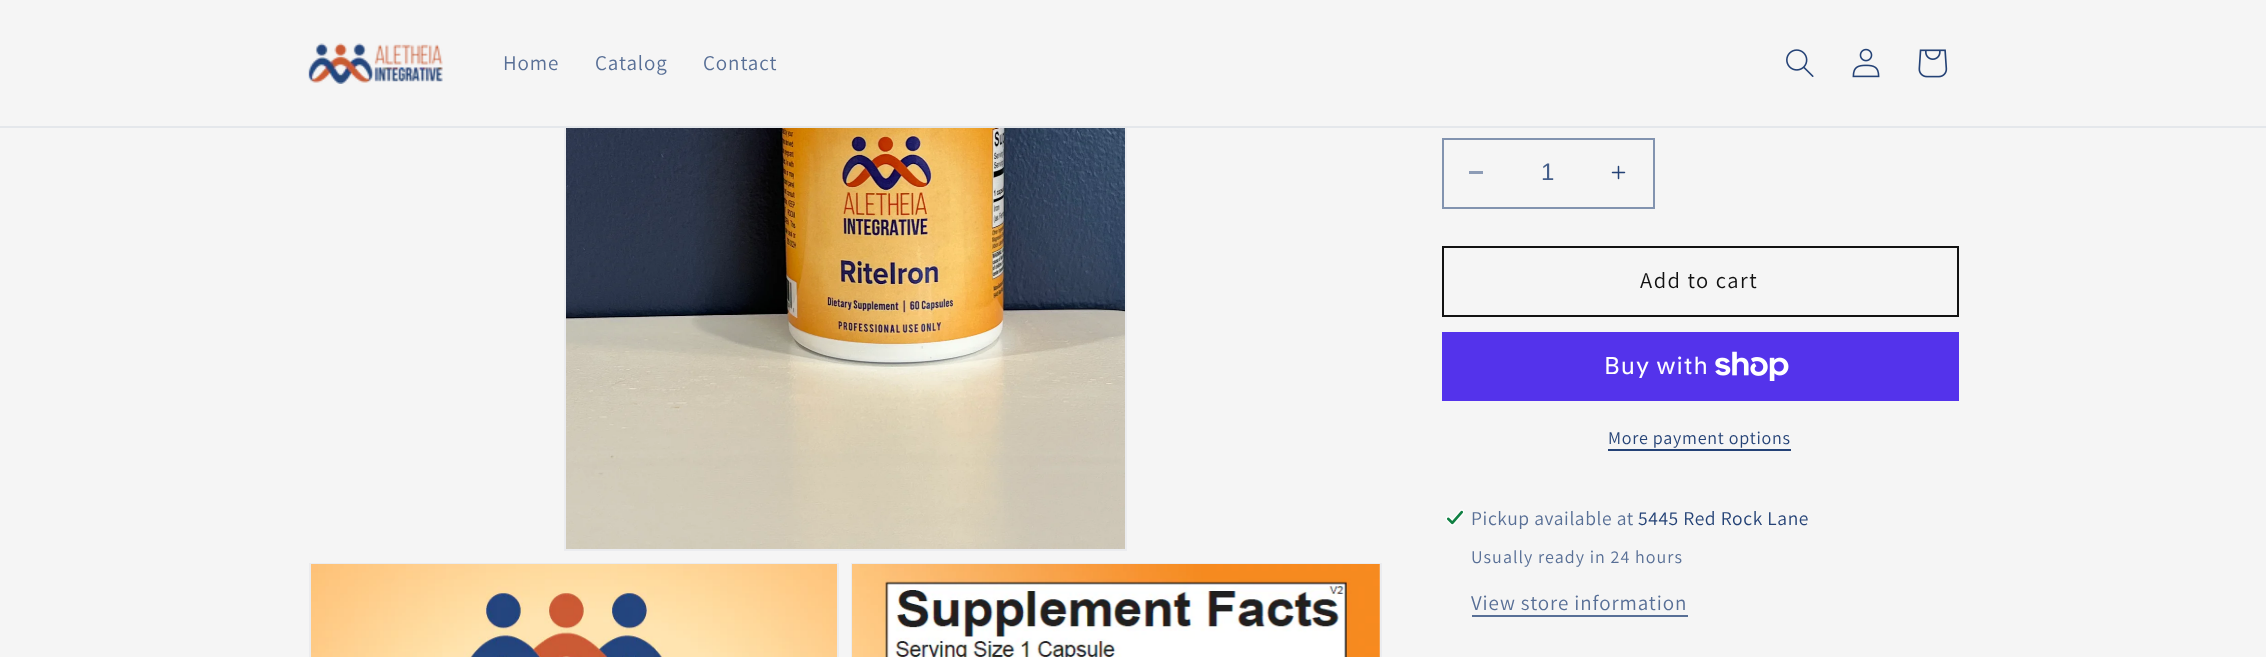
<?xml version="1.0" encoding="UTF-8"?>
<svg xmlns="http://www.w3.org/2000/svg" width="2266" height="657">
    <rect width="100%" height="100%" fill="#F5F5F5"/>
    <rect x="565" y="-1" width="561" height="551" fill="none" stroke="#EBECEF" stroke-width="2"/>
    <rect x="564" y="0" width="563" height="126" fill="#F5F5F5"/>
    <rect x="0" y="126" width="2266" height="2" fill="#E4E7EB"/>
    <image x="308" y="43" width="135" height="41" href="img_01.png"/>
    <text x="503" y="70" font-family="Assistant" font-size="21" letter-spacing="0.9" fill="#586F96">Home</text>
    <text x="595" y="70" font-family="Assistant" font-size="21" letter-spacing="0.9" fill="#586F96">Catalog</text>
    <text x="703" y="70" font-family="Assistant" font-size="21" letter-spacing="0.9" fill="#586F96">Contact</text>
    <image x="1786" y="49" width="28" height="28" href="img_02.png"/>
    <image x="1852" y="48" width="28" height="30" href="img_03.png"/>
    <image x="1918" y="49" width="30" height="29" href="img_04.png"/>
    <image x="566" y="128" width="559" height="421" href="img_05.png"/>
    <rect x="310" y="564" width="528" height="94" fill="none" stroke="#EBECEF" stroke-width="2"/>
    <image x="311" y="564" width="526" height="93" href="img_06.png"/>
    <rect x="852" y="564" width="529" height="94" fill="none" stroke="#EBECEF" stroke-width="2"/>
    <image x="852" y="564" width="528" height="93" href="img_07.png"/>
    <rect x="1469" y="171" width="14" height="3" fill="#8D9CB6"/>
    <image x="1611" y="165" width="15" height="15" href="img_08.png"/>
    <rect x="1443" y="139" width="211" height="69" fill="none" stroke="#8293AF" stroke-width="2"/>
    <text x="1541" y="180" font-family="Liberation Sans" font-size="24" fill="#435D89">1</text>
    <rect x="1443" y="247" width="515" height="69" fill="none" stroke="#121212" stroke-width="2"/>
    <text x="1640" y="288" font-family="Assistant" font-size="22.5" letter-spacing="1.5" fill="#121212">Add to cart</text>
    <rect x="1442" y="332" width="517" height="69" fill="#5433EB"/>
    <text x="1604" y="374" font-family="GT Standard" font-size="24" letter-spacing="0.9" fill="#FFFFFF">Buy with</text>
    <image x="1715" y="351" width="74" height="30" href="img_09.png"/>
    <text x="1608" y="444" font-family="Assistant" font-size="18" letter-spacing="0.75" fill="#244276">More payment options</text>
    <rect x="1608" y="449" width="183" height="2" fill="#244276"/>
    <image x="1445" y="509" width="19" height="17" href="img_10.png"/>
    <text x="1471" y="525" font-family="Assistant" font-size="19.5" letter-spacing="0.6" fill="#586F96">Pickup available at</text>
    <text x="1638" y="525" font-family="Assistant" font-size="19.5" letter-spacing="0.6" fill="#244276">5445 Red Rock Lane</text>
    <text x="1471" y="563" font-family="Assistant" font-size="18" letter-spacing="1.05" fill="#586F96">Usually ready in 24 hours</text>
    <text x="1471" y="610" font-family="Assistant" font-size="21" letter-spacing="0.9" fill="#586F96">View store information</text>
    <rect x="1472" y="615" width="216" height="2" fill="#586F96"/>
</svg>
